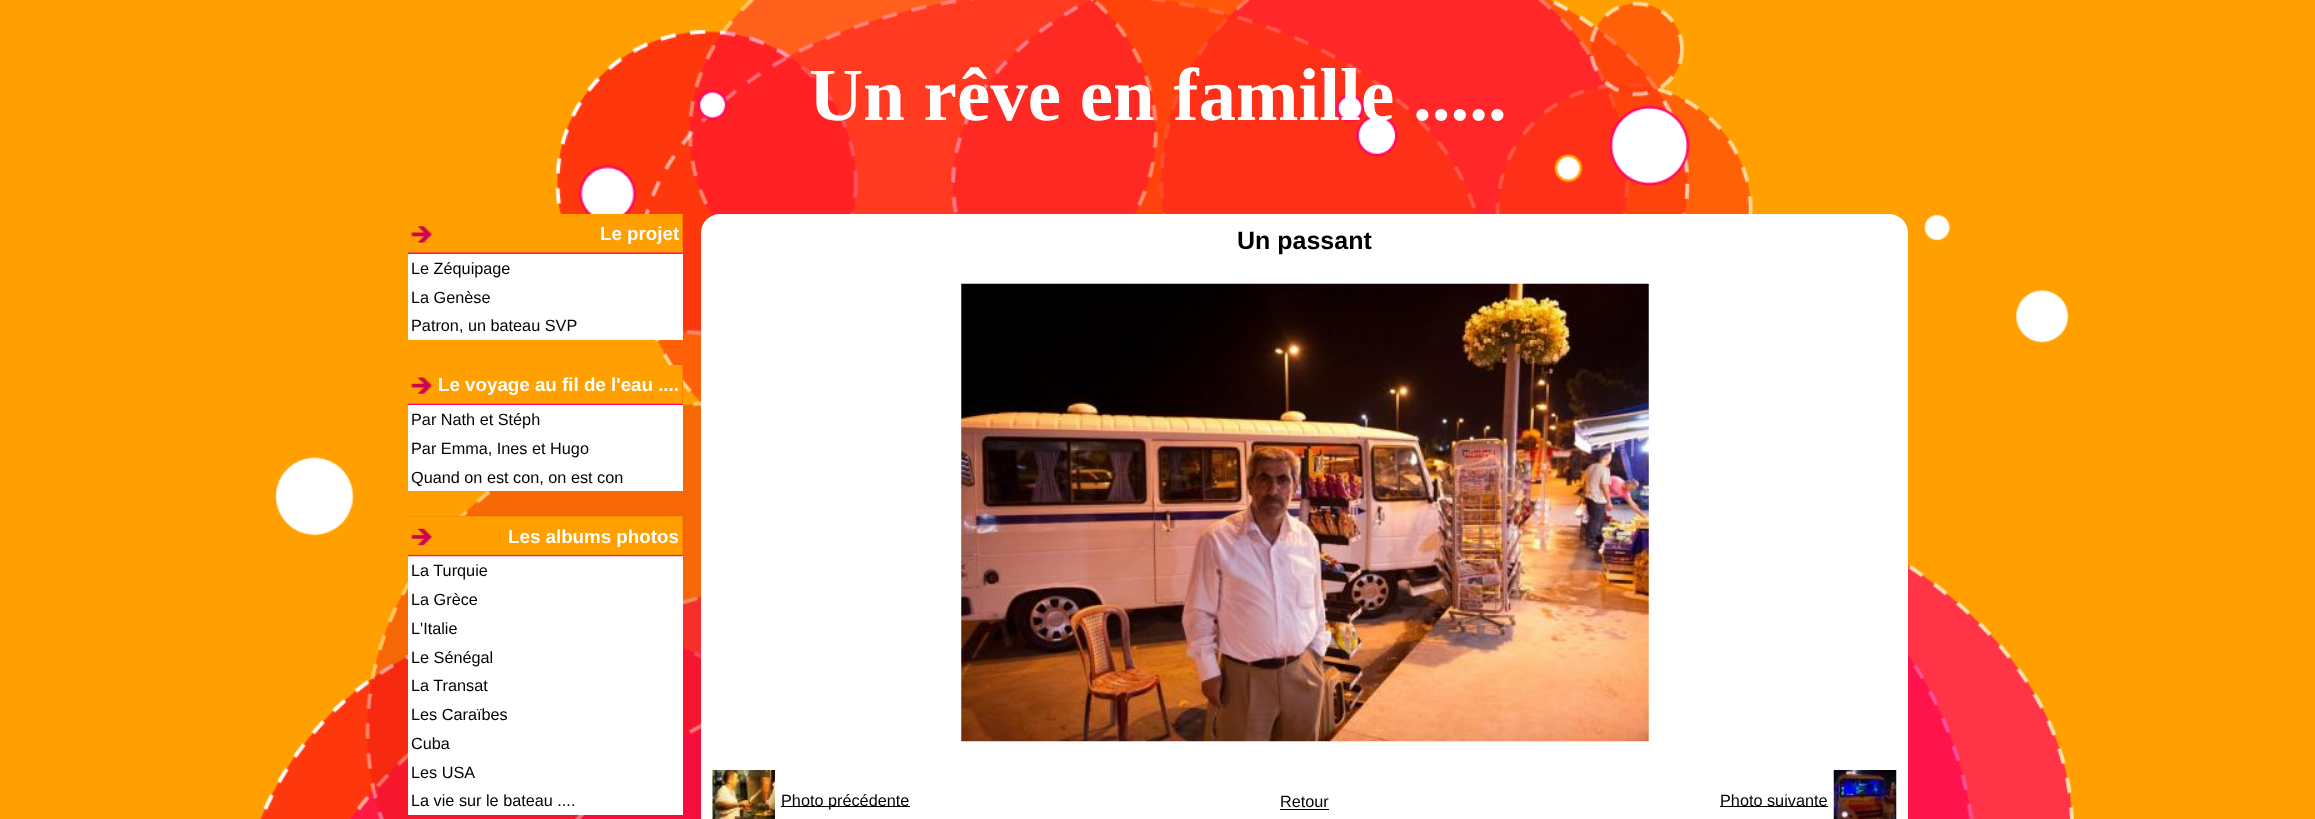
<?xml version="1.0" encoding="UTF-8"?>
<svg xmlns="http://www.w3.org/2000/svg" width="2315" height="819">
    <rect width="100%" height="100%" fill="#FFA000"/>
    <image x="260" y="0" width="1814" height="819" href="img_01.png"/>
    <text x="809" y="120" font-family="Liberation Serif" font-size="75" font-weight="700" fill="#FFFFFF">Un rêve en famille .....</text>
    <rect x="408" y="254" width="275" height="86" fill="#FFFFFF"/>
    <rect x="408" y="214" width="275" height="40" fill="#FF6600"/>
    <image x="407" y="213" width="276" height="41" href="img_02.png"/>
    <text x="600" y="240" font-family="Liberation Sans" font-size="18.75" font-weight="700" fill="#FFFFFF">Le projet</text>
    <text font-family="Liberation Sans" font-size="16.25" fill="#000000">
        <tspan x="411" y="274">Le Zéquipage</tspan>
        <tspan x="411" y="303">La Genèse</tspan>
        <tspan x="411" y="331">Patron, un bateau SVP</tspan>
    </text>
    <rect x="408" y="405" width="275" height="86" fill="#FFFFFF"/>
    <rect x="682" y="365" width="1" height="40" fill="#FF6600"/>
    <image x="407" y="365" width="276" height="40" href="img_03.png"/>
    <text x="438" y="391" font-family="Liberation Sans" font-size="18.75" font-weight="700" fill="#FFFFFF">Le voyage au fil de l'eau ....</text>
    <text font-family="Liberation Sans" font-size="16.25" fill="#000000">
        <tspan x="411" y="425">Par Nath et Stéph</tspan>
        <tspan x="411" y="454">Par Emma, Ines et Hugo</tspan>
        <tspan x="411" y="483">Quand on est con, on est con</tspan>
    </text>
    <rect x="408" y="556" width="275" height="259" fill="#FFFFFF"/>
    <rect x="408" y="516" width="275" height="40" fill="#FF6600"/>
    <image x="407" y="516" width="276" height="41" href="img_04.png"/>
    <text x="508" y="543" font-family="Liberation Sans" font-size="18.75" font-weight="700" fill="#FFFFFF">Les albums photos</text>
    <text font-family="Liberation Sans" font-size="16.25" fill="#000000">
        <tspan x="411" y="576">La Turquie</tspan>
        <tspan x="411" y="605">La Grèce</tspan>
        <tspan x="411" y="634">L'Italie</tspan>
        <tspan x="411" y="663">Le Sénégal</tspan>
        <tspan x="411" y="691">La Transat</tspan>
        <tspan x="411" y="720">Les Caraïbes</tspan>
        <tspan x="411" y="749">Cuba</tspan>
        <tspan x="411" y="778">Les USA</tspan>
        <tspan x="411" y="806">La vie sur le bateau ....</tspan>
    </text>
    <rect x="704" y="217" width="1201" height="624" rx="16" fill="#FFFFFF" stroke="#FFFFFF" stroke-width="6"/>
    <text x="1237" y="249" font-family="Liberation Sans" font-size="25" font-weight="700" fill="#000000">Un passant</text>
    <image x="961" y="283" width="688" height="459" href="img_05.png"/>
    <image x="712" y="770" width="63" height="49" href="img_06.png"/>
    <rect x="781" y="806" width="129" height="1" fill="#000000"/>
    <text x="781" y="806" font-family="Liberation Sans" font-size="16.25" fill="#000000">Photo précédente</text>
    <text x="1280" y="807" font-family="Liberation Sans" font-size="16.25" fill="#000000">Retour</text>
    <rect x="1280" y="809" width="49" height="1" fill="#000000"/>
    <rect x="1720" y="806" width="108" height="1" fill="#000000"/>
    <text x="1720" y="806" font-family="Liberation Sans" font-size="16.25" fill="#000000">Photo suivante</text>
    <image x="1833" y="770" width="64" height="49" href="img_07.png"/>
</svg>
